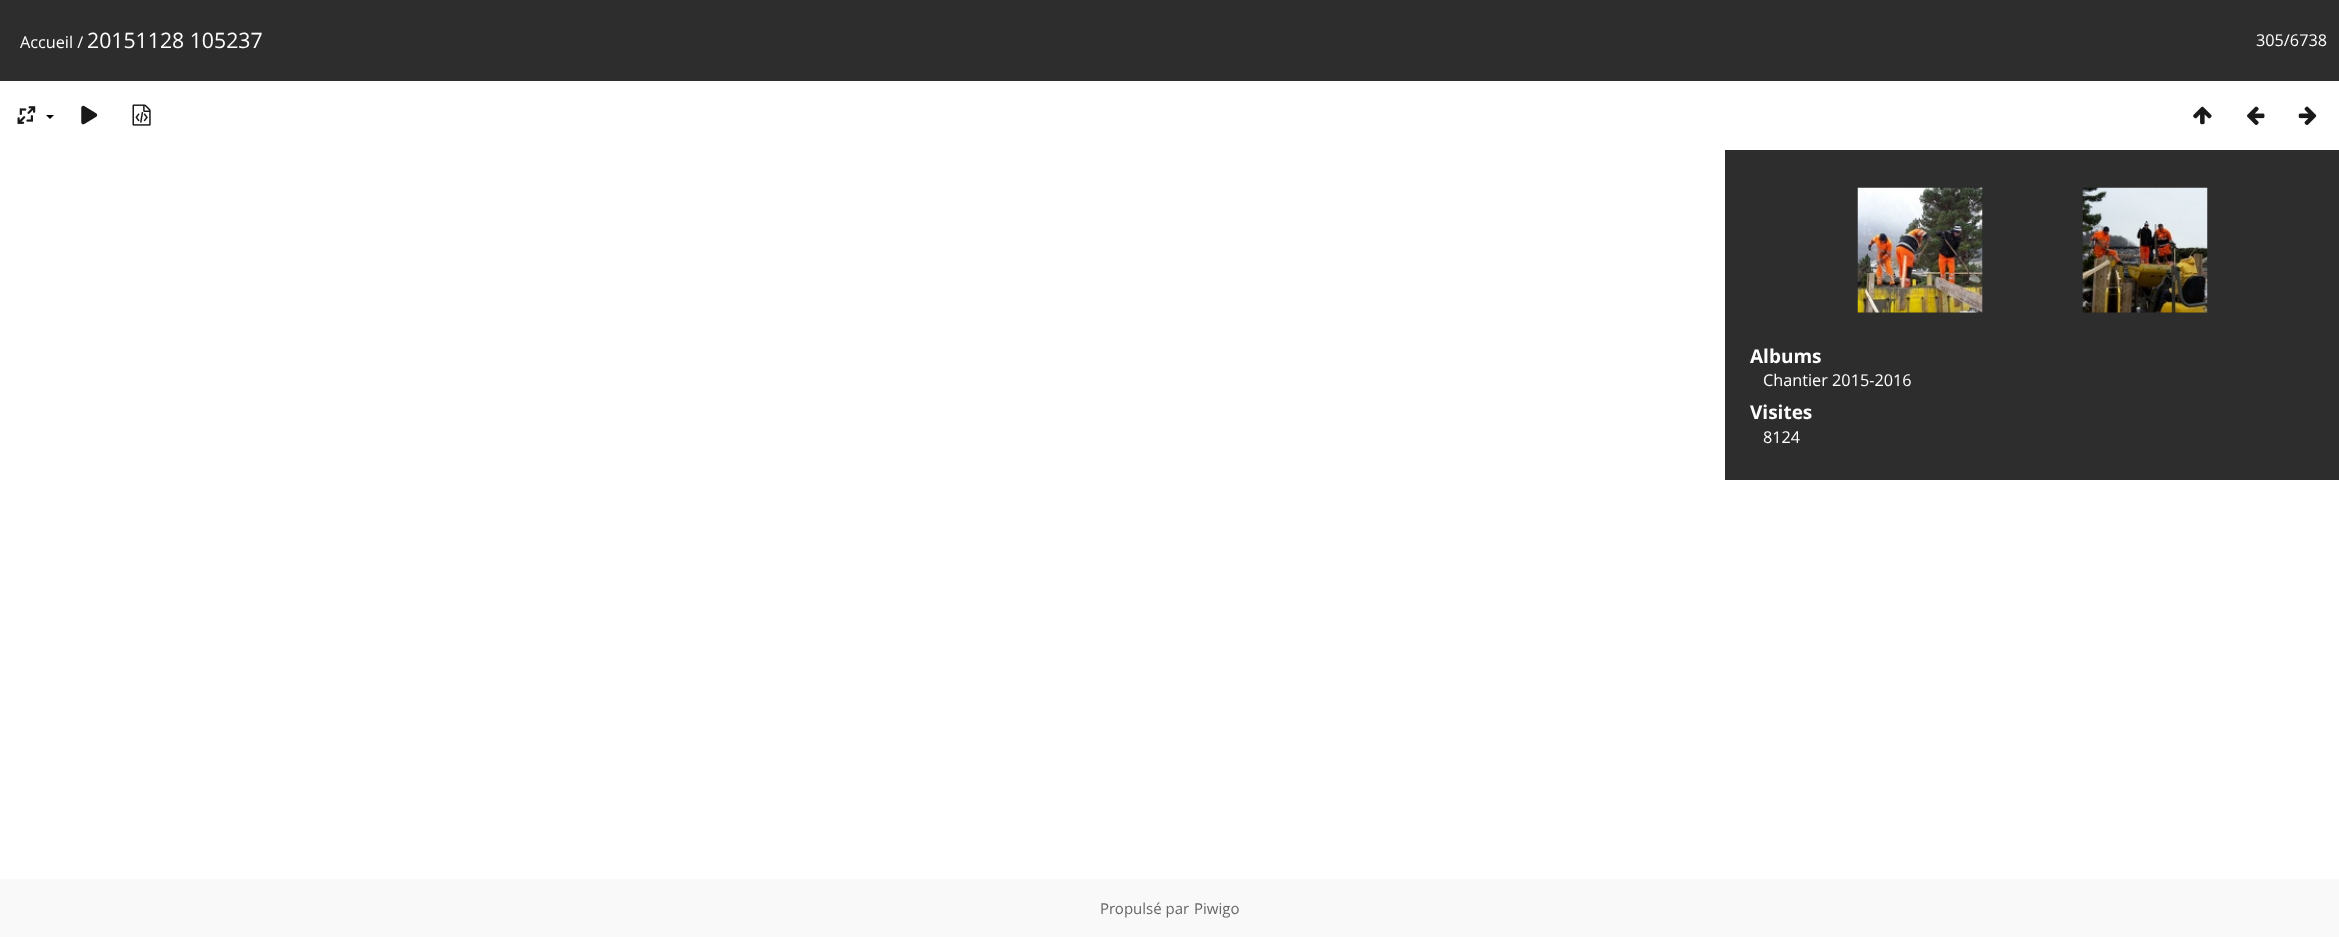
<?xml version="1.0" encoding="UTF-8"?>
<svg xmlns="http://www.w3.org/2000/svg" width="2339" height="937">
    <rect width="100%" height="100%" fill="#FFFFFF"/>
    <rect x="0" y="0" width="2339" height="81" fill="#2D2D2D"/>
    <text x="20" y="48" font-family="Open Sans" font-size="16.25" fill="#FFFFFF">Accueil /</text>
    <text x="87" y="48" font-family="Open Sans" font-size="21.25" fill="#FFFFFF">20151128 105237</text>
    <text x="2256" y="46" font-family="Open Sans" font-size="16.25" fill="#FFFFFF">305/6738</text>
    <image x="17" y="106" width="19" height="18" href="img_01.png"/>
    <path d="M 46 115 H 54 L 50 119 Z" fill="#000000"/>
    <image x="81" y="105" width="17" height="20" href="img_02.png"/>
    <image x="132" y="104" width="19" height="22" href="img_03.png"/>
    <image x="2193" y="106" width="19" height="19" href="img_04.png"/>
    <image x="2247" y="106" width="18" height="19" href="img_05.png"/>
    <image x="2298" y="106" width="19" height="19" href="img_06.png"/>
    <rect x="1725" y="150" width="614" height="330" fill="#2D2D2D"/>
    <image x="1857" y="187" width="126" height="126" href="img_07.png"/>
    <image x="2082" y="187" width="126" height="126" href="img_08.png"/>
    <text x="1750" y="363" font-family="Open Sans" font-size="19" font-weight="700" fill="#FFFFFF">Albums</text>
    <text x="1763" y="386" font-family="Open Sans" font-size="16.25" fill="#FFFFFF">Chantier 2015-2016</text>
    <text x="1750" y="419" font-family="Open Sans" font-size="19" font-weight="700" fill="#FFFFFF">Visites</text>
    <text x="1763" y="443" font-family="Open Sans" font-size="16.25" fill="#FFFFFF">8124</text>
    <rect x="0" y="879" width="2339" height="58" fill="#F9F9F9"/>
    <text x="1100" y="914" font-family="Open Sans" font-size="15" fill="#666666">Propulsé par</text>
    <text x="1194" y="914" font-family="Open Sans" font-size="15" fill="#666666">Piwigo</text>
</svg>
